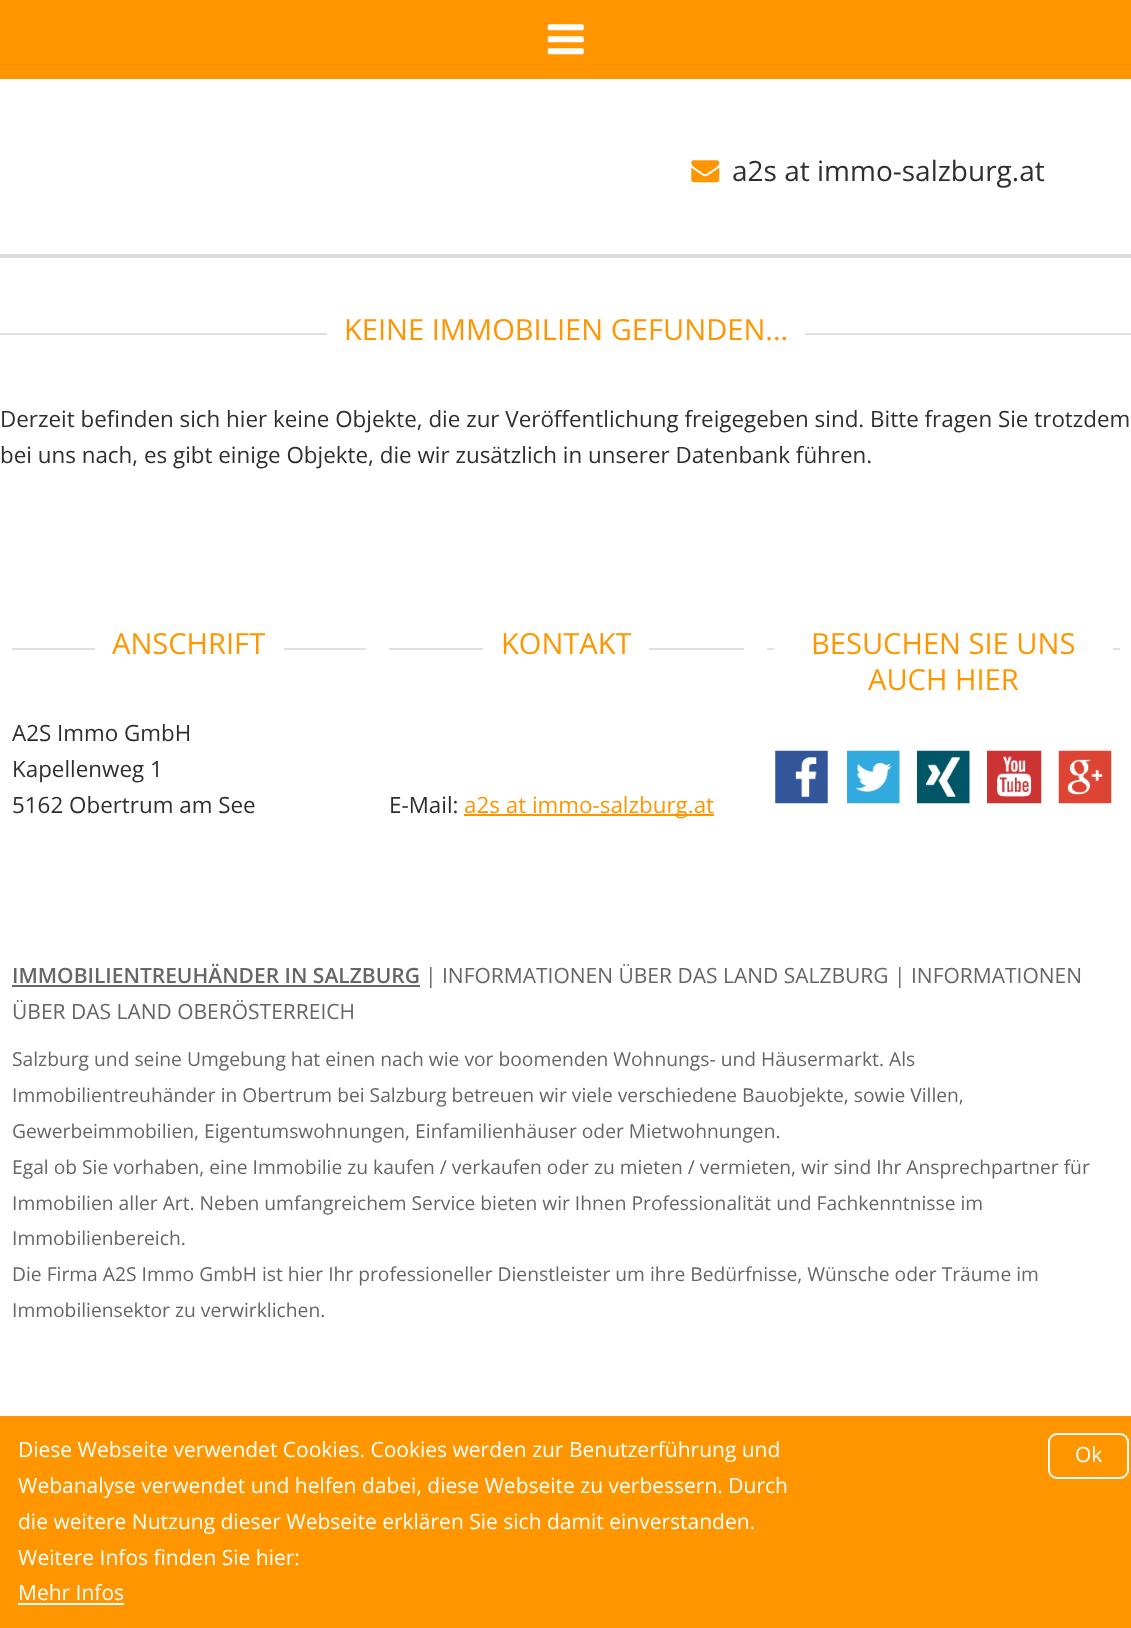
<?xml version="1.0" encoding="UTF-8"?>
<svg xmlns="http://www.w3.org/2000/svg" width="1131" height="1628">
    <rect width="100%" height="100%" fill="#FFFFFF"/>
    <rect x="0" y="0" width="1131" height="79" fill="#FF9600"/>
    <image x="547" y="24" width="37" height="31" href="img_01.png"/>
    <image x="691" y="160" width="29" height="23" href="img_02.png"/>
    <text x="732" y="181" font-family="Open Sans" font-size="28" fill="#2F2F2F">a2s at immo-salzburg.at</text>
    <rect x="0" y="254" width="1131" height="4" fill="#DCDCDC"/>
    <rect x="0" y="333" width="327" height="2" fill="#E0E0E0"/>
    <text x="344" y="340" font-family="Open Sans" font-size="29.1" fill="#FF9600">KEINE IMMOBILIEN GEFUNDEN...</text>
    <rect x="805" y="333" width="326" height="2" fill="#E0E0E0"/>
    <text font-family="Open Sans" font-size="22.4" fill="#2F2F2F">
        <tspan x="0" y="427">Derzeit befinden sich hier keine Objekte, die zur Veröffentlichung freigegeben sind. Bitte fragen Sie trotzdem</tspan>
        <tspan x="0" y="463">bei uns nach, es gibt einige Objekte, die wir zusätzlich in unserer Datenbank führen.</tspan>
    </text>
    <rect x="12" y="648" width="83" height="2" fill="#E0E0E0"/>
    <text x="112" y="654" font-family="Open Sans" font-size="29.1" fill="#FF9600">ANSCHRIFT</text>
    <rect x="284" y="648" width="82" height="2" fill="#E0E0E0"/>
    <text font-family="Open Sans" font-size="22.4" fill="#2F2F2F">
        <tspan x="12" y="741">A2S Immo GmbH</tspan>
        <tspan x="12" y="777">Kapellenweg 1</tspan>
        <tspan x="12" y="813">5162 Obertrum am See</tspan>
    </text>
    <rect x="389" y="648" width="94" height="2" fill="#E0E0E0"/>
    <text x="501" y="654" font-family="Open Sans" font-size="29.1" fill="#FF9600">KONTAKT</text>
    <rect x="649" y="648" width="95" height="2" fill="#E0E0E0"/>
    <text x="389" y="813" font-family="Open Sans" font-size="22.4" fill="#2F2F2F">E-Mail:</text>
    <rect x="464" y="814" width="250" height="2" fill="#FF9600"/>
    <text x="464" y="813" font-family="Open Sans" font-size="22.4" fill="#FF9600">a2s at immo-salzburg.at</text>
    <rect x="767" y="648" width="7" height="2" fill="#E0E0E0"/>
    <text x="811" y="654" font-family="Open Sans" font-size="29.1" fill="#FF9600">BESUCHEN SIE UNS</text>
    <rect x="1113" y="648" width="7" height="2" fill="#E0E0E0"/>
    <text x="868" y="690" font-family="Open Sans" font-size="29.1" fill="#FF9600">AUCH HIER</text>
    <image x="775" y="750" width="53" height="54" href="img_03.png"/>
    <image x="847" y="750" width="53" height="54" href="img_04.png"/>
    <image x="917" y="750" width="53" height="54" href="img_05.png"/>
    <image x="987" y="750" width="55" height="54" href="img_06.png"/>
    <image x="1058" y="750" width="54" height="54" href="img_07.png"/>
    <text x="12" y="983" font-family="Open Sans" font-size="21" font-weight="600" fill="#666666">IMMOBILIENTREUHÄNDER IN SALZBURG</text>
    <rect x="12" y="985" width="408" height="2" fill="#666666"/>
    <text x="425" y="983" font-family="Open Sans" font-size="21" fill="#666666">| INFORMATIONEN ÜBER DAS LAND SALZBURG | INFORMATIONEN</text>
    <text x="12" y="1019" font-family="Open Sans" font-size="21" fill="#666666">ÜBER DAS LAND OBERÖSTERREICH</text>
    <text font-family="Open Sans" font-size="19.25" fill="#666666">
        <tspan x="12" y="1066">Salzburg und seine Umgebung hat einen nach wie vor boomenden Wohnungs- und Häusermarkt. Als</tspan>
        <tspan x="12" y="1102">Immobilientreuhänder in Obertrum bei Salzburg betreuen wir viele verschiedene Bauobjekte, sowie Villen,</tspan>
        <tspan x="12" y="1138">Gewerbeimmobilien, Eigentumswohnungen, Einfamilienhäuser oder Mietwohnungen.</tspan>
        <tspan x="12" y="1174">Egal ob Sie vorhaben, eine Immobilie zu kaufen / verkaufen oder zu mieten / vermieten, wir sind Ihr Ansprechpartner für</tspan>
        <tspan x="12" y="1210">Immobilien aller Art. Neben umfangreichem Service bieten wir Ihnen Professionalität und Fachkenntnisse im</tspan>
        <tspan x="12" y="1245">Immobilienbereich.</tspan>
        <tspan x="12" y="1281">Die Firma A2S Immo GmbH ist hier Ihr professioneller Dienstleister um ihre Bedürfnisse, Wünsche oder Träume im</tspan>
        <tspan x="12" y="1317">Immobiliensektor zu verwirklichen.</tspan>
    </text>
    <rect x="0" y="1416" width="1131" height="212" fill="#FF9600"/>
    <text font-family="Open Sans" font-size="21" fill="#FFFFFF">
        <tspan x="18" y="1457">Diese Webseite verwendet Cookies. Cookies werden zur Benutzerführung und</tspan>
        <tspan x="18" y="1493">Webanalyse verwendet und helfen dabei, diese Webseite zu verbessern. Durch</tspan>
        <tspan x="18" y="1529">die weitere Nutzung dieser Webseite erklären Sie sich damit einverstanden.</tspan>
        <tspan x="18" y="1565">Weitere Infos finden Sie hier:</tspan>
        <tspan x="18" y="1600">Mehr Infos</tspan>
    </text>
    <rect x="18" y="1603" width="106" height="2" fill="#FFFFFF"/>
    <rect x="1049" y="1434" width="79" height="44" rx="8" fill="none" stroke="#FFFFFF" stroke-width="2"/>
    <text x="1075" y="1462" font-family="Open Sans" font-size="21" fill="#FFFFFF">Ok</text>
</svg>
